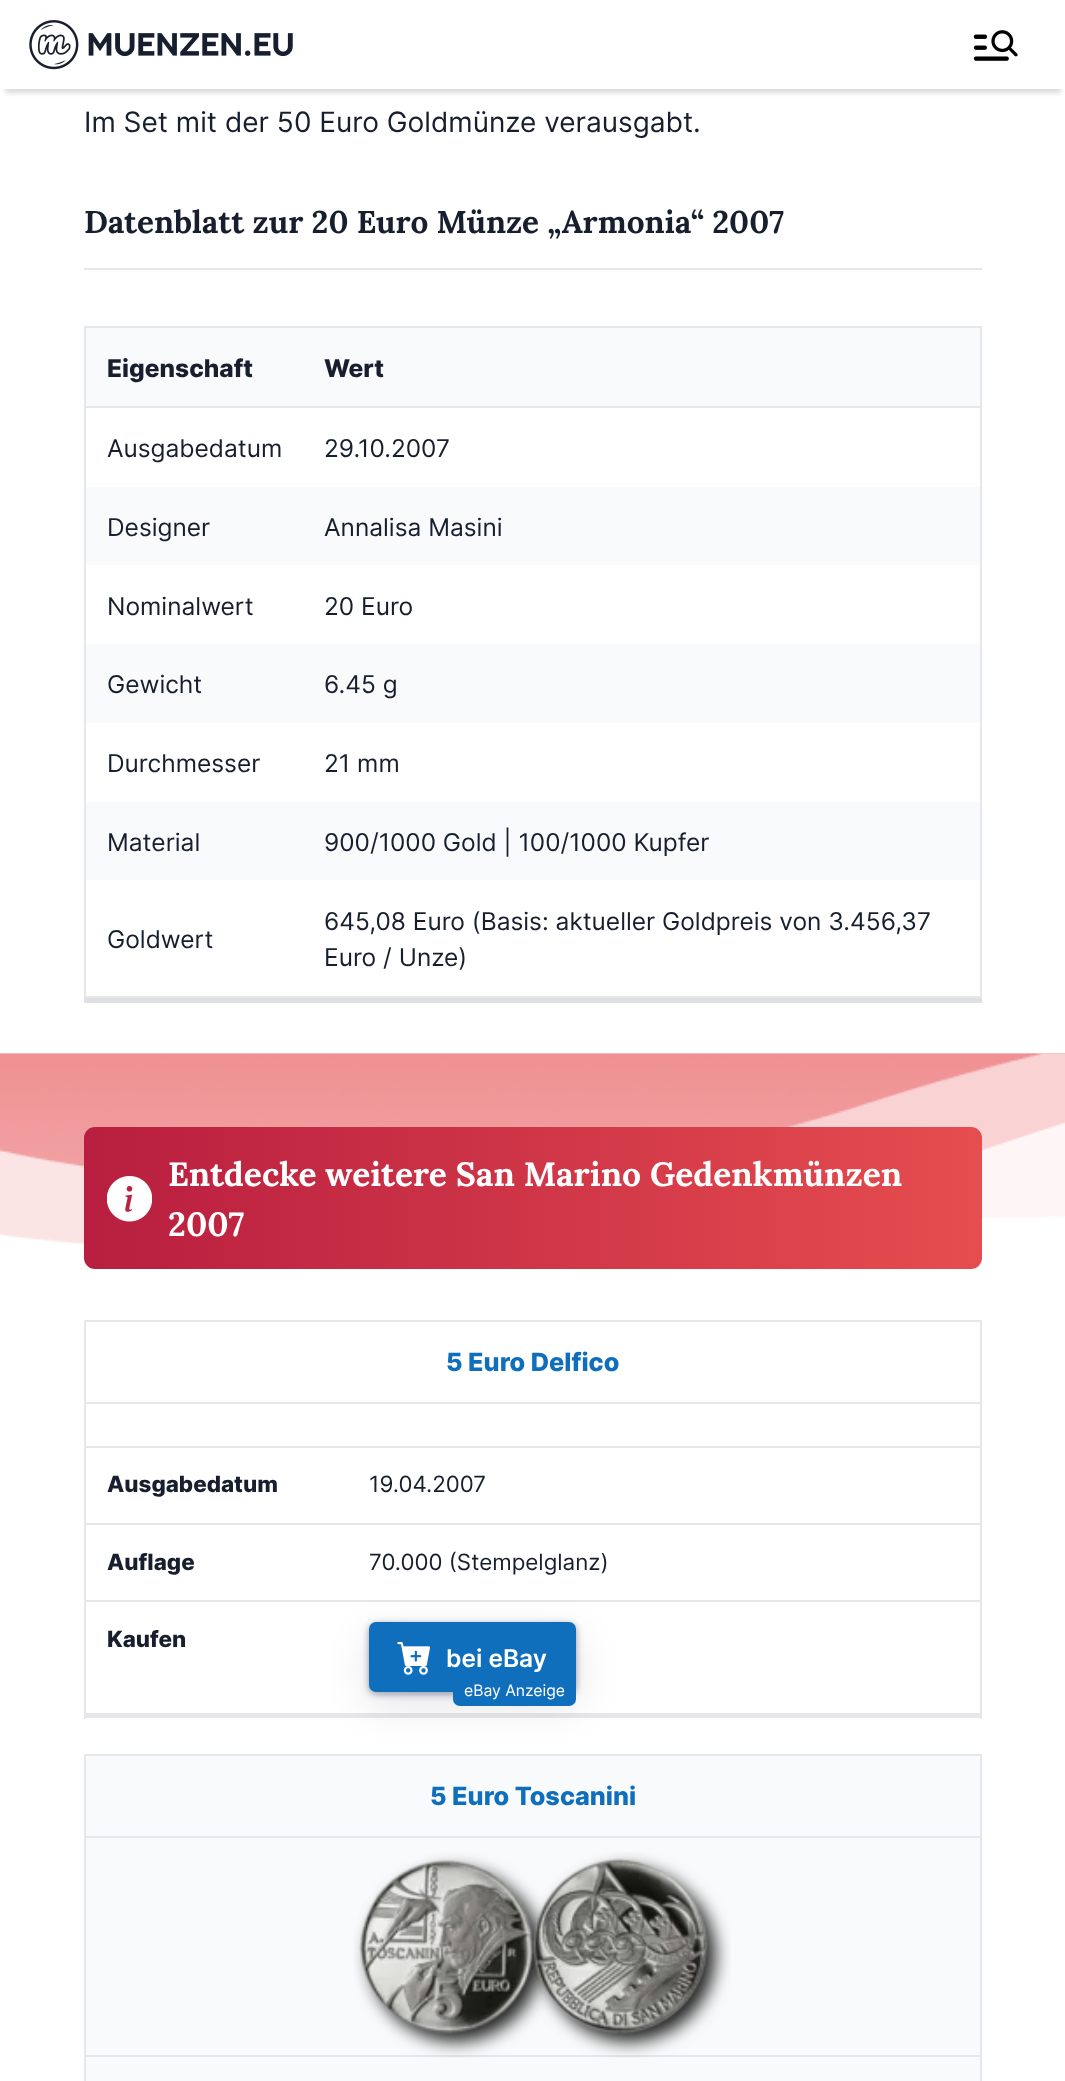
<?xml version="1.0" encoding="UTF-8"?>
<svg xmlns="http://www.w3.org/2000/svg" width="1065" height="2081">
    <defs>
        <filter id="blur1" x="-50%" y="-200%" width="200%" height="500%"><feGaussianBlur stdDeviation="2.5"/></filter>
        <linearGradient id="g1" gradientUnits="userSpaceOnUse" x1="84" y1="1198" x2="982" y2="1198"><stop offset="0" stop-color="#B81E3F"/><stop offset="1" stop-color="#E64D4F"/></linearGradient>
        <filter id="blur2" x="-50%" y="-200%" width="200%" height="500%"><feGaussianBlur stdDeviation="21"/></filter>
        <filter id="blur3" x="-50%" y="-200%" width="200%" height="500%"><feGaussianBlur stdDeviation="3.5"/></filter>
    </defs>
    <rect width="100%" height="100%" fill="#FFFFFF"/>
    <rect x="5" y="14" width="1056" height="79" fill="#DADADC" filter="url(#blur1)"/>
    <rect x="1" y="10" width="1064" height="79" fill="#FFFFFF"/>
    <image x="29" y="20" width="264" height="50" href="img_01.png"/>
    <image x="973" y="30" width="45" height="31" href="img_02.png"/>
    <text x="84" y="132" font-family="Inter" font-size="28" fill="#171E2E">Im Set mit der 50 Euro Goldmünze verausgabt.</text>
    <rect x="84" y="268" width="898" height="2" fill="#E6E7EB"/>
    <text x="84" y="233" font-family="Lora" font-size="31.5" font-weight="700" fill="#171E2E">Datenblatt zur 20 Euro Münze „Armonia“ 2007</text>
    <path d="M 84 998 V 1003 H 982 V 331 V 998 Z" fill="#DEE0E3"/>
    <rect x="84" y="326" width="898" height="2" fill="#E6E7EB"/>
    <rect x="980" y="326" width="2" height="672" fill="#E6E7EB"/>
    <rect x="84" y="996" width="898" height="2" fill="#E6E7EB"/>
    <rect x="84" y="326" width="2" height="672" fill="#E6E7EB"/>
    <rect x="86" y="328" width="894" height="78" fill="#F9FAFB"/>
    <rect x="84" y="406" width="898" height="2" fill="#E6E7EB"/>
    <text x="107" y="377" font-family="Inter" font-size="24.5" font-weight="800" fill="#171E2E">Eigenschaft</text>
    <text x="324" y="377" font-family="Inter" font-size="24.5" font-weight="800" fill="#171E2E">Wert</text>
    <text x="107" y="457" font-family="Inter" font-size="24.5" fill="#171E2E">Ausgabedatum</text>
    <text x="324" y="457" font-family="Inter" font-size="24.5" fill="#171E2E">29.10.2007</text>
    <rect x="86" y="487" width="894" height="78" fill="#F9FAFB"/>
    <text x="107" y="536" font-family="Inter" font-size="24.5" fill="#171E2E">Designer</text>
    <text x="324" y="536" font-family="Inter" font-size="24.5" fill="#171E2E">Annalisa Masini</text>
    <text x="107" y="615" font-family="Inter" font-size="24.5" fill="#171E2E">Nominalwert</text>
    <text x="324" y="615" font-family="Inter" font-size="24.5" fill="#171E2E">20 Euro</text>
    <rect x="86" y="644" width="894" height="79" fill="#F9FAFB"/>
    <text x="107" y="693" font-family="Inter" font-size="24.5" fill="#171E2E">Gewicht</text>
    <text x="324" y="693" font-family="Inter" font-size="24.5" fill="#171E2E">6.45 g</text>
    <text x="107" y="772" font-family="Inter" font-size="24.5" fill="#171E2E">Durchmesser</text>
    <text x="324" y="772" font-family="Inter" font-size="24.5" fill="#171E2E">21 mm</text>
    <rect x="86" y="802" width="894" height="78" fill="#F9FAFB"/>
    <text x="107" y="851" font-family="Inter" font-size="24.5" fill="#171E2E">Material</text>
    <text x="324" y="851" font-family="Inter" font-size="24.5" fill="#171E2E">900/1000 Gold | 100/1000 Kupfer</text>
    <text x="107" y="948" font-family="Inter" font-size="24.5" fill="#171E2E">Goldwert</text>
    <text font-family="Inter" font-size="24.5" fill="#171E2E">
        <tspan x="324" y="930">645,08 Euro (Basis: aktueller Goldpreis von 3.456,37</tspan>
        <tspan x="324" y="966">Euro / Unze)</tspan>
    </text>
    <image x="0" y="1053" width="1065" height="203" href="img_03.png"/>
    <rect x="84" y="1127" width="898" height="142" rx="11" fill="url(#g1)"/>
    <image x="107" y="1176" width="45" height="46" href="img_04.png"/>
    <text font-family="Lora" font-size="33.6" font-weight="700" fill="#FFFFFF">
        <tspan x="168" y="1186">Entdecke weitere San Marino Gedenkmünzen</tspan>
        <tspan x="168" y="1236">2007</tspan>
    </text>
    <rect x="84" y="1320" width="898" height="2" fill="#E6E7EB"/>
    <rect x="980" y="1320" width="2" height="399" fill="#E6E7EB"/>
    <rect x="84" y="1713" width="898" height="5" fill="#E6E7EB"/>
    <rect x="84" y="1320" width="2" height="399" fill="#E6E7EB"/>
    <rect x="86" y="1402" width="894" height="2" fill="#E6E7EB"/>
    <text x="446" y="1371" font-family="Inter" font-size="25.25" font-weight="800" fill="#106FBC">5 Euro Delfico</text>
    <rect x="86" y="1446" width="894" height="2" fill="#E6E7EB"/>
    <rect x="86" y="1523" width="894" height="2" fill="#E6E7EB"/>
    <text x="107" y="1492" font-family="Inter" font-size="22.4" font-weight="800" fill="#171E2E">Ausgabedatum</text>
    <text x="369" y="1492" font-family="Inter" font-size="22.4" fill="#171E2E">19.04.2007</text>
    <rect x="86" y="1600" width="894" height="2" fill="#E6E7EB"/>
    <text x="107" y="1570" font-family="Inter" font-size="22.4" font-weight="800" fill="#171E2E">Auflage</text>
    <text x="369" y="1570" font-family="Inter" font-size="22.4" fill="#171E2E">70.000 (Stempelglanz)</text>
    <text x="107" y="1647" font-family="Inter" font-size="22.4" font-weight="800" fill="#171E2E">Kaufen</text>
    <rect x="86" y="1756" width="894" height="325" fill="#F9FAFB"/>
    <rect x="84" y="1754" width="898" height="2" fill="#E6E7EB"/>
    <rect x="369" y="1636" width="207" height="70" rx="7" fill="#051B2C" fill-opacity="0.1" filter="url(#blur2)"/>
    <rect x="369" y="1624" width="207" height="70" rx="7" fill="#051B2C" fill-opacity="0.4" filter="url(#blur3)"/>
    <rect x="370" y="1623" width="205" height="68" rx="6" fill="#106FBC" stroke="#106FBC" stroke-width="2"/>
    <image x="397" y="1641" width="33" height="34" href="img_05.png"/>
    <text x="446" y="1667" font-family="Inter" font-size="24.5" font-weight="600" fill="#FFFFFF">bei eBay</text>
    <rect x="453" y="1677" width="123" height="29" rx="7" fill="#106FBC"/>
    <text x="464" y="1696" font-family="Inter" font-size="15.75" fill="#FFFFFF">eBay Anzeige</text>
    <rect x="980" y="1754" width="2" height="327" fill="#E6E7EB"/>
    <rect x="84" y="1754" width="2" height="327" fill="#E6E7EB"/>
    <rect x="86" y="1836" width="894" height="2" fill="#E6E7EB"/>
    <text x="430" y="1805" font-family="Inter" font-size="25.25" font-weight="800" fill="#106FBC">5 Euro Toscanini</text>
    <rect x="86" y="2055" width="894" height="2" fill="#E6E7EB"/>
    <image x="353" y="1852" width="378" height="206" href="img_06.png"/>
</svg>
